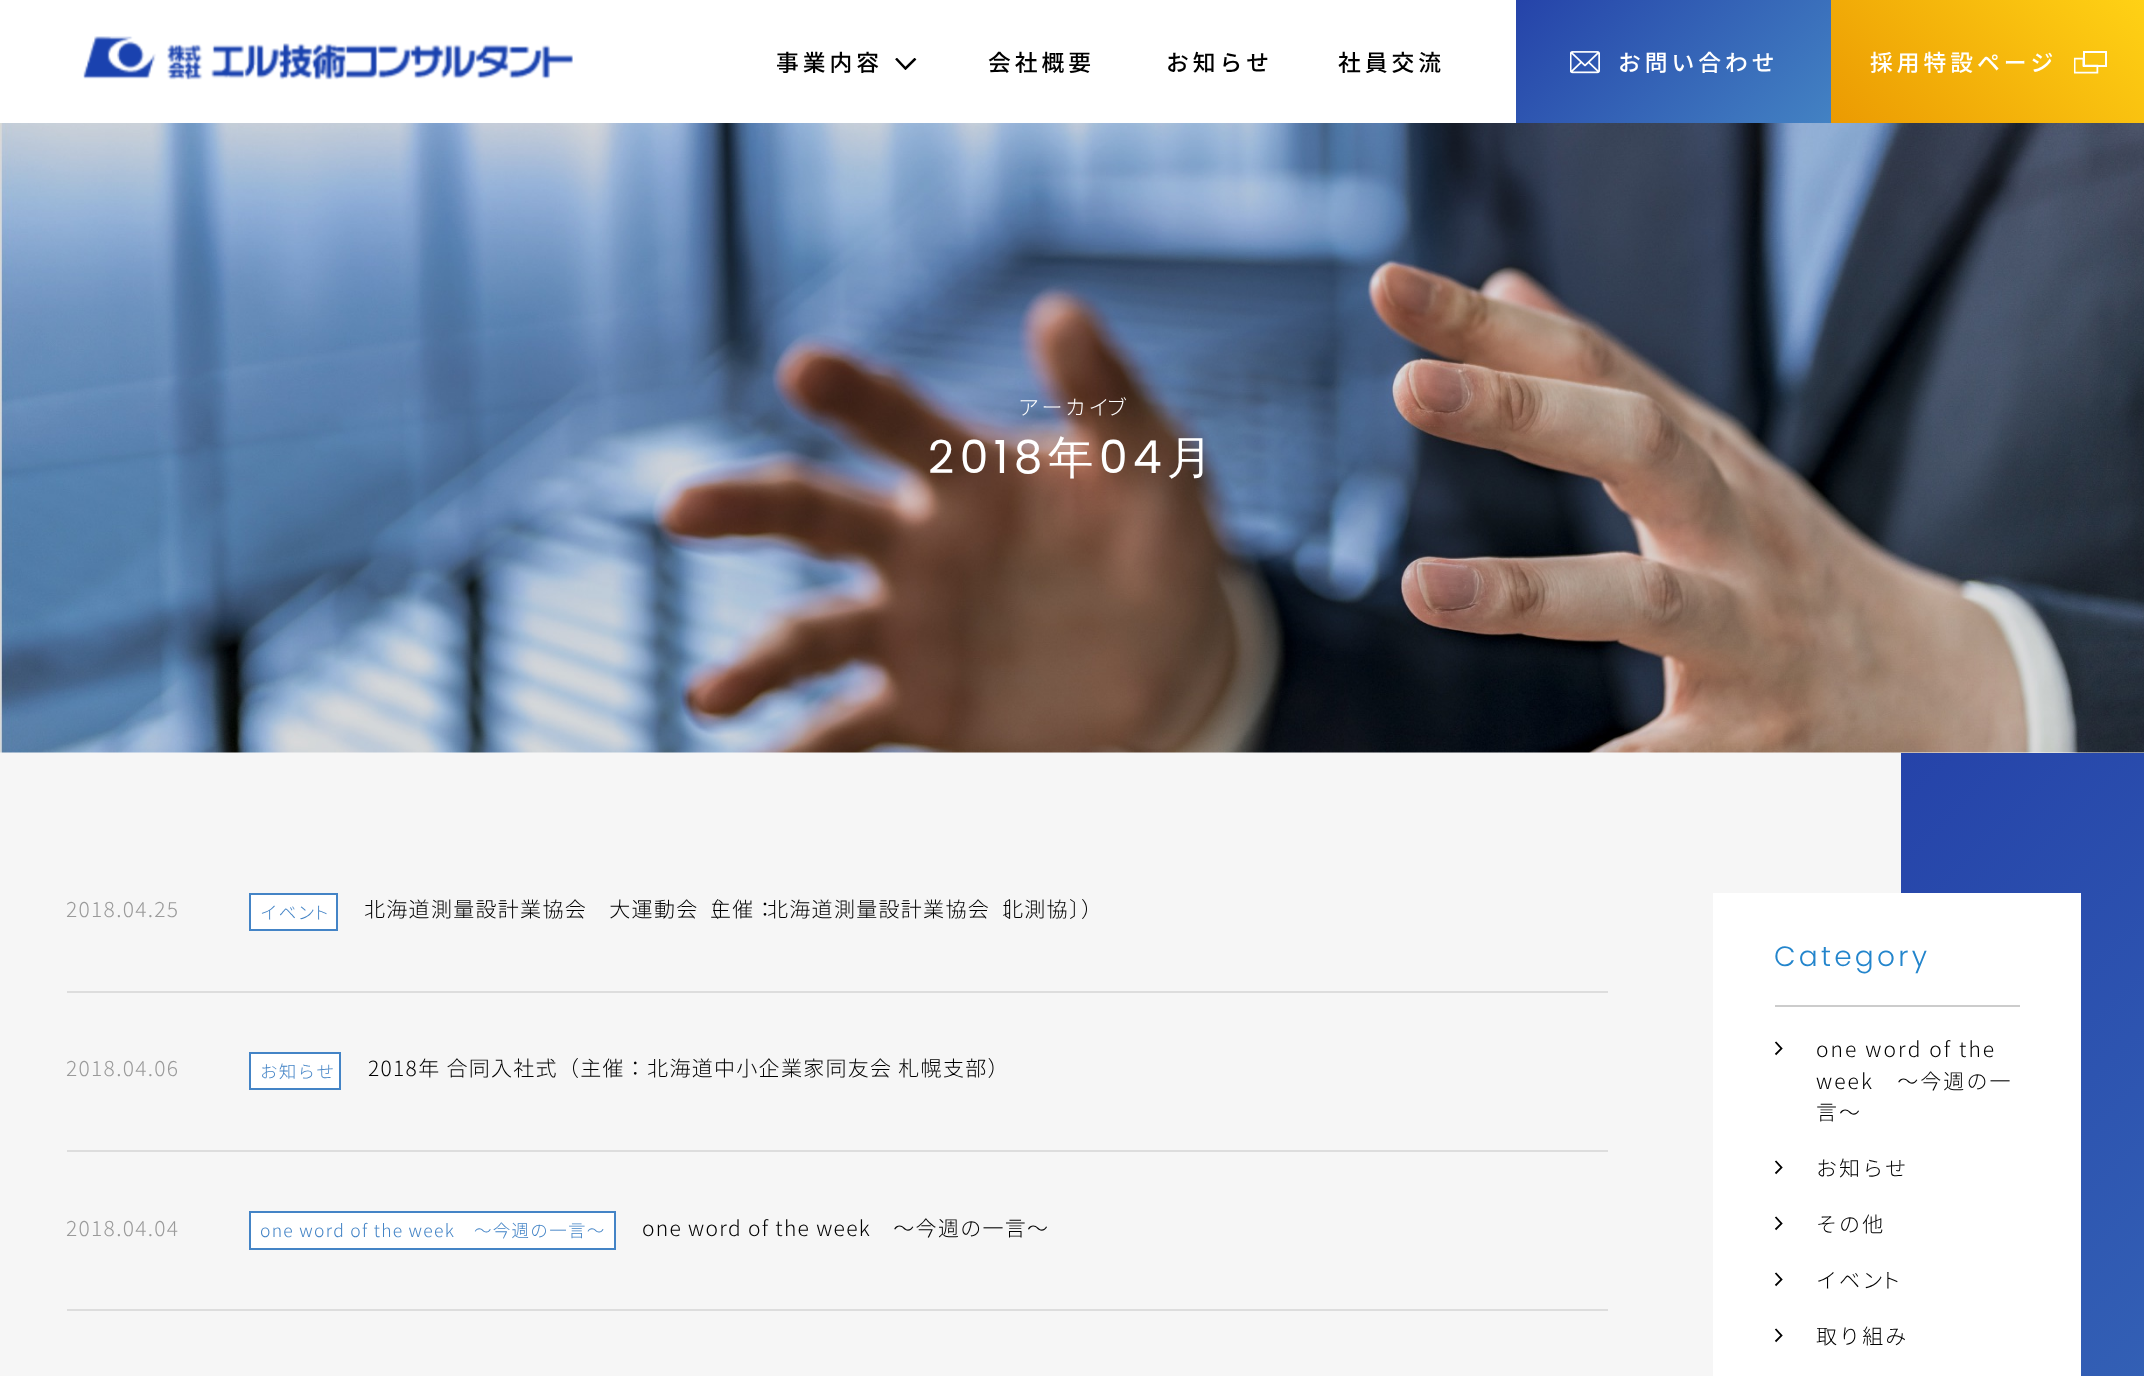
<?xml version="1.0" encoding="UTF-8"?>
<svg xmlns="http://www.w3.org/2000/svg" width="2144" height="1376">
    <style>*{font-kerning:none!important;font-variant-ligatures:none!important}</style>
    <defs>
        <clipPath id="clip1"><rect x="894" y="58" width="23" height="12"/></clipPath>
        <linearGradient id="g1" gradientUnits="userSpaceOnUse" x1="1564" y1="-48" x2="1782" y2="171"><stop offset="0" stop-color="#2543A9"/><stop offset="1" stop-color="#4382C3"/></linearGradient>
        <linearGradient id="g2" gradientUnits="userSpaceOnUse" x1="1879" y1="171" x2="2097" y2="-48"><stop offset="0" stop-color="#EB9A02"/><stop offset="1" stop-color="#FFD215"/></linearGradient>
        <linearGradient id="g3" gradientUnits="userSpaceOnUse" x1="1546" y1="1107" x2="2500" y2="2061"><stop offset="0" stop-color="#2543A9"/><stop offset="1" stop-color="#4382C3"/></linearGradient>
    </defs>
    <rect width="100%" height="100%" fill="#F6F6F6"/>
    <rect x="0" y="0" width="1516" height="123" fill="#FFFFFF"/>
    <image x="83" y="36" width="490" height="44" href="img_01.png"/>
    <text x="776" y="71" font-family="Noto Sans JP" font-size="22.75" font-weight="500" letter-spacing="4" fill="#000000">事業内容</text>
    <g clip-path="url(#clip1)">
        <path d="M 896 58.5 L 905.5 68.5 L 915.5 58.5" fill="none" stroke="#000000" stroke-width="2.5"/>
    </g>
    <text x="988" y="71" font-family="Noto Sans JP" font-size="22.75" font-weight="500" letter-spacing="4" fill="#000000">会社概要</text>
    <text x="1166" y="71" font-family="Noto Sans JP" font-size="22.75" font-weight="500" letter-spacing="4" fill="#000000">お知らせ</text>
    <text x="1338" y="71" font-family="Noto Sans JP" font-size="22.75" font-weight="500" letter-spacing="4" fill="#000000">社員交流</text>
    <rect x="1516" y="0" width="315" height="123" fill="url(#g1)"/>
    <image x="1570" y="51" width="30" height="23" href="img_02.png"/>
    <text x="1618" y="71" font-family="Noto Sans JP" font-size="22.75" font-weight="500" letter-spacing="4" fill="#FFFFFF">お問い合わせ</text>
    <rect x="1831" y="0" width="313" height="123" fill="url(#g2)"/>
    <image x="2074" y="51" width="33" height="23" href="img_03.png"/>
    <text x="1870" y="71" font-family="Noto Sans JP" font-size="22.75" font-weight="500" letter-spacing="4" fill="#FFFFFF">採用特設ページ</text>
    <image x="0" y="123" width="2144" height="630" href="img_04.png"/>
    <text x="1018" y="415" font-family="Noto Sans JP" font-size="21" font-weight="300" letter-spacing="2.5" fill="#FFFFFF">アーカイ</text>
    <text x="1106" y="415" font-family="Noto Sans JP" font-size="21" font-weight="300" letter-spacing="2.5" fill="#FFFFFF">ブ</text>
    <text x="928" y="473" font-family="Poppins" font-size="45.5" letter-spacing="5.5" fill="#FFFFFF">2018</text>
    <text x="1048" y="473" font-family="WenQuanYi Zen Hei" font-size="45.5" font-weight="500" letter-spacing="5.5" fill="#FFFFFF">年</text>
    <text x="1099" y="473" font-family="Poppins" font-size="45.5" letter-spacing="5.5" fill="#FFFFFF">04</text>
    <text x="1167" y="473" font-family="WenQuanYi Zen Hei" font-size="45.5" font-weight="500" letter-spacing="5.5" fill="#FFFFFF">月</text>
    <rect x="67" y="991" width="1541" height="2" fill="#DDDDDD"/>
    <text x="66" y="917" font-family="Noto Sans JP" font-size="21" font-weight="300" letter-spacing="1.3" fill="#9A9A9A">2018.04.25</text>
    <rect x="250" y="894" width="87" height="36" fill="#FFFFFF" stroke="#4484C6" stroke-width="2"/>
    <text x="260" y="919" font-family="Noto Sans JP" font-size="17.5" font-weight="300" letter-spacing="1.3" fill="#4484C6">イベン</text>
    <text x="312" y="919" font-family="Noto Sans JP" font-size="17.5" font-weight="300" letter-spacing="1.3" fill="#4484C6">ト</text>
    <text x="364" y="917" font-family="Noto Sans JP" font-size="21" font-weight="300" letter-spacing="1.3" fill="#000000">北海道測量設計業協会　大運動会（</text>
    <text x="710" y="917" font-family="Noto Sans JP" font-size="21" font-weight="300" letter-spacing="1.3" fill="#000000">主催：</text>
    <text x="767" y="917" font-family="Noto Sans JP" font-size="21" font-weight="300" letter-spacing="1.3" fill="#000000">北海道測量設計業協会〔</text>
    <text x="1002" y="917" font-family="Noto Sans JP" font-size="21" font-weight="300" letter-spacing="1.3" fill="#000000">北測協〕</text>
    <text x="1081" y="917" font-family="Noto Sans JP" font-size="21" font-weight="300" letter-spacing="1.3" fill="#000000">）</text>
    <rect x="67" y="1150" width="1541" height="2" fill="#DDDDDD"/>
    <text x="66" y="1076" font-family="Noto Sans JP" font-size="21" font-weight="300" letter-spacing="1.3" fill="#9A9A9A">2018.04.06</text>
    <rect x="250" y="1053" width="90" height="36" fill="#FFFFFF" stroke="#4484C6" stroke-width="2"/>
    <text x="260" y="1078" font-family="Noto Sans JP" font-size="17.5" font-weight="300" letter-spacing="1.3" fill="#4484C6">お知らせ</text>
    <text x="368" y="1076" font-family="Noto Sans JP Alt" font-size="21" font-weight="300" letter-spacing="1.3" fill="#000000">2018年 合同入社式（主催：北海道中小企業家同友会 札幌支部）</text>
    <rect x="67" y="1309" width="1541" height="2" fill="#DDDDDD"/>
    <text x="66" y="1236" font-family="Noto Sans JP" font-size="21" font-weight="300" letter-spacing="1.3" fill="#9A9A9A">2018.04.04</text>
    <rect x="250" y="1212" width="365" height="37" fill="#FFFFFF" stroke="#4484C6" stroke-width="2"/>
    <text x="260" y="1237" font-family="Noto Sans JP" font-size="17.5" font-weight="300" letter-spacing="1.3" fill="#4484C6">one word of the week　～今週の一言～</text>
    <text x="642" y="1236" font-family="Noto Sans JP" font-size="21" font-weight="300" letter-spacing="1.3" fill="#000000">one word of the week　～今週の一言～</text>
    <rect x="1901" y="753" width="243" height="623" fill="url(#g3)"/>
    <rect x="1713" y="893" width="368" height="483" fill="#FFFFFF"/>
    <text x="1774" y="966" font-family="Poppins" font-size="28" font-weight="300" letter-spacing="3.25" fill="#2385CC">Category</text>
    <rect x="1775" y="1005" width="245" height="2" fill="#CCCCCC"/>
    <path d="M 1775.5 1042 L 1781.5 1048.5 L 1775.5 1054.5" fill="none" stroke="#000000" stroke-width="1.8"/>
    <text font-family="Noto Sans JP" font-size="21" font-weight="300" letter-spacing="2.1" fill="#000000">
        <tspan x="1816" y="1057">one word of the</tspan>
        <tspan x="1816" y="1089">week　～今週の一</tspan>
        <tspan x="1816" y="1120">言～</tspan>
    </text>
    <path d="M 1775.5 1161 L 1781.5 1167.5 L 1775.5 1173.5" fill="none" stroke="#000000" stroke-width="1.8"/>
    <text x="1816" y="1176" font-family="Noto Sans JP" font-size="21" font-weight="300" letter-spacing="2.1" fill="#000000">お知らせ</text>
    <path d="M 1775.5 1217 L 1781.5 1223.5 L 1775.5 1229.5" fill="none" stroke="#000000" stroke-width="1.8"/>
    <text x="1816" y="1232" font-family="Noto Sans JP" font-size="21" font-weight="300" letter-spacing="2.1" fill="#000000">その他</text>
    <path d="M 1775.5 1273 L 1781.5 1279.5 L 1775.5 1285.5" fill="none" stroke="#000000" stroke-width="1.8"/>
    <text x="1816" y="1288" font-family="Noto Sans JP" font-size="21" font-weight="300" letter-spacing="2.1" fill="#000000">イベン</text>
    <text x="1880" y="1288" font-family="Noto Sans JP" font-size="21" font-weight="300" letter-spacing="2.1" fill="#000000">ト</text>
    <path d="M 1775.5 1329 L 1781.5 1335.5 L 1775.5 1341.5" fill="none" stroke="#000000" stroke-width="1.8"/>
    <text x="1816" y="1344" font-family="Noto Sans JP" font-size="21" font-weight="300" letter-spacing="2.1" fill="#000000">取り組み</text>
</svg>
